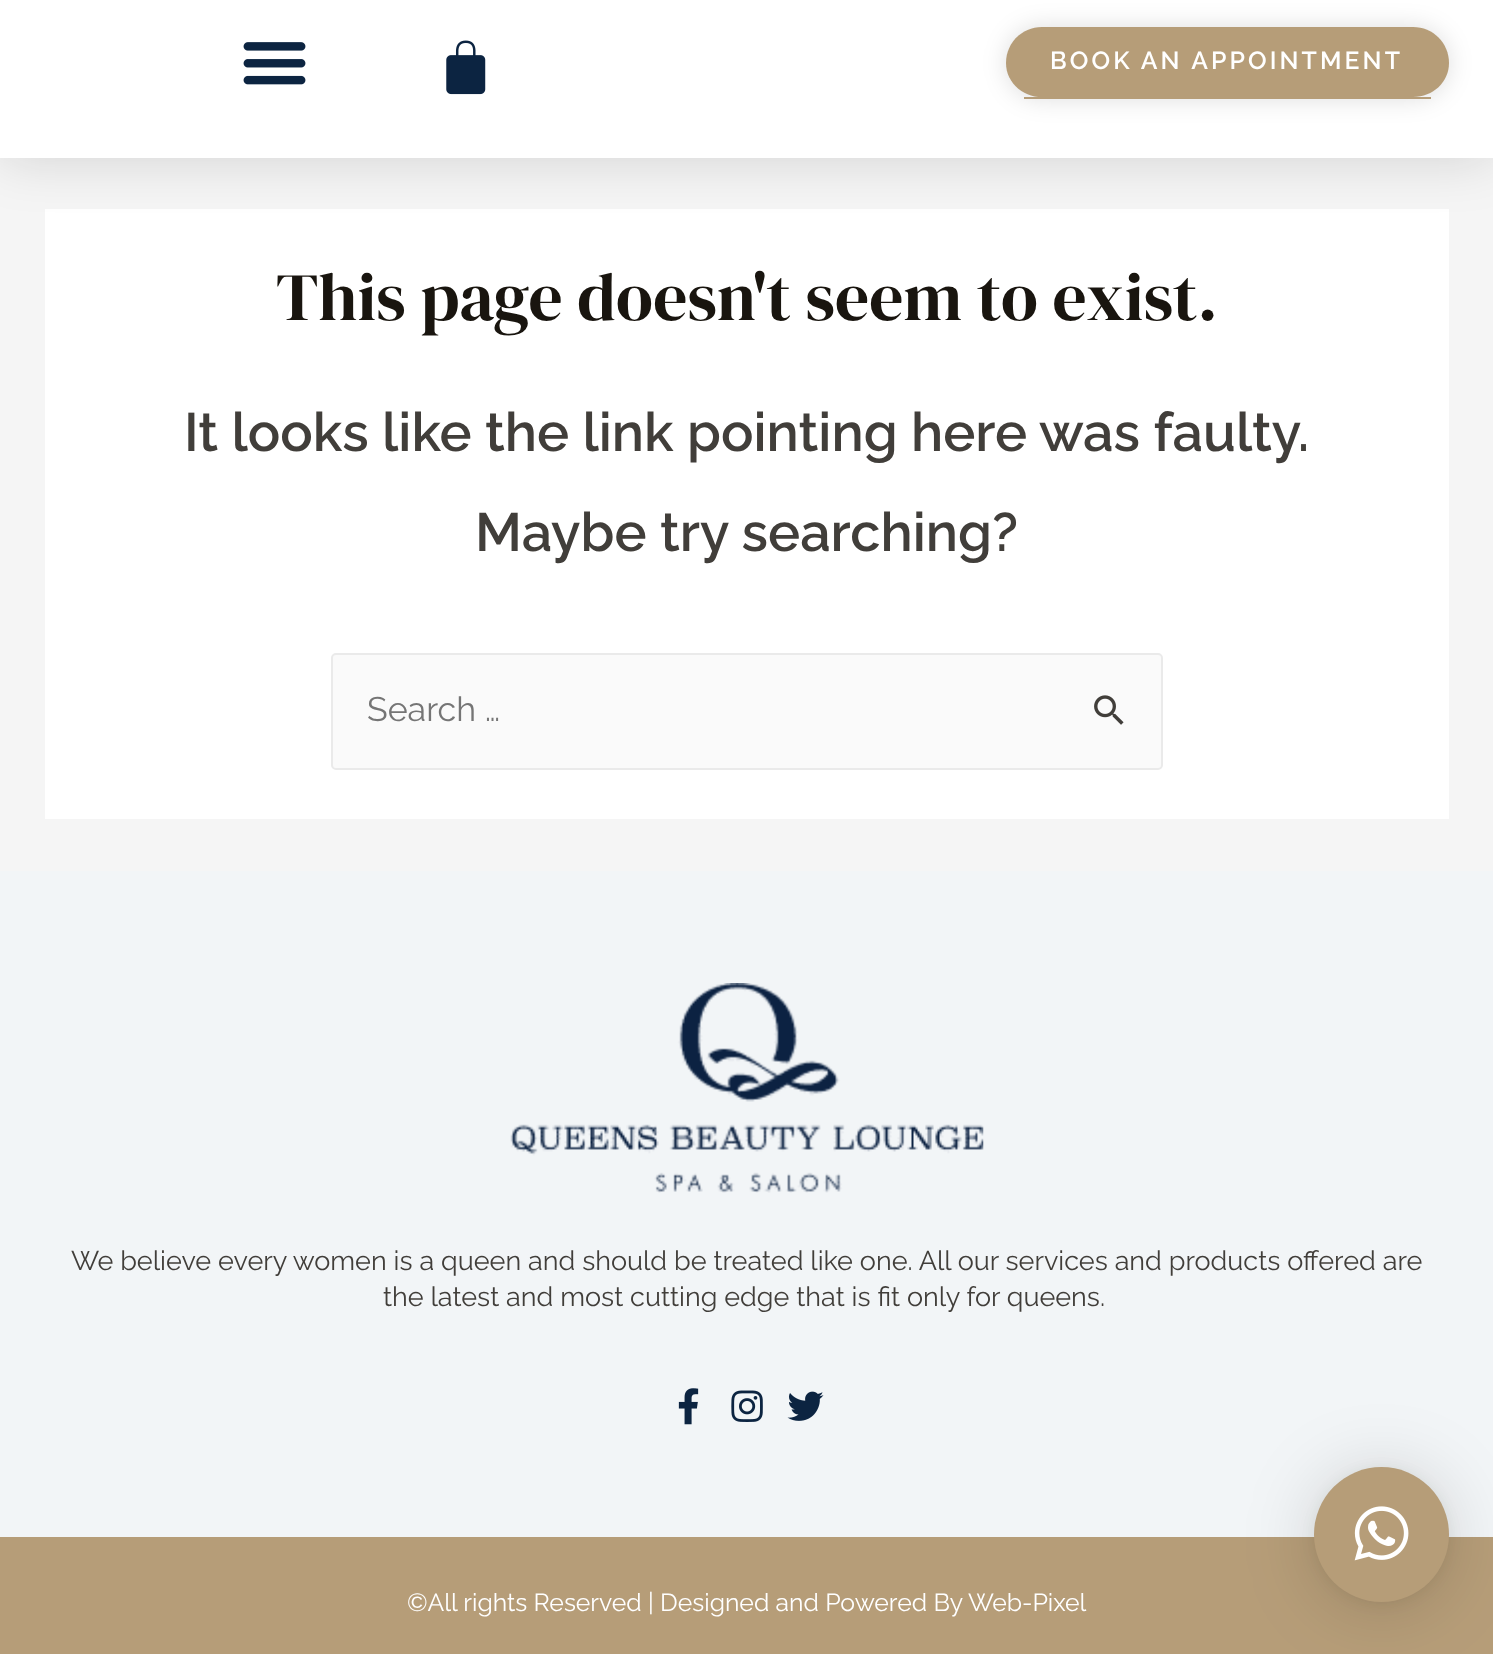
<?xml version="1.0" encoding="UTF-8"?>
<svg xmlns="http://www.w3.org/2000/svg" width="1493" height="1654">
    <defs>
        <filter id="blur1" x="-50%" y="-200%" width="200%" height="500%"><feGaussianBlur stdDeviation="27"/></filter>
        <filter id="blur2" x="-50%" y="-200%" width="200%" height="500%"><feGaussianBlur stdDeviation="12.5"/></filter>
        <filter id="blur3" x="-50%" y="-200%" width="200%" height="500%"><feGaussianBlur stdDeviation="36"/></filter>
        <filter id="blur4" x="-50%" y="-200%" width="200%" height="500%"><feGaussianBlur stdDeviation="7"/></filter>
    </defs>
    <rect width="100%" height="100%" fill="#F5F5F5"/>
    <rect x="45" y="209" width="1404" height="610" fill="#FFFFFF"/>
    <rect x="0" y="-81" width="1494" height="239" fill="#000000" fill-opacity="0.15" filter="url(#blur1)"/>
    <rect x="0" y="0" width="1493" height="158" fill="#FFFFFF"/>
    <image x="243" y="42" width="63" height="43" href="img_01.png"/>
    <image x="446" y="40" width="40" height="55" href="img_02.png"/>
    <rect x="1006" y="27" width="443" height="72" rx="36" fill="#000000" fill-opacity="0.13" filter="url(#blur2)"/>
    <path d="M 1042 27 H 1413 C 1433 27 1449 43 1449 63 C 1449 82 1433 97 1413 97 H 1042 C 1022 97 1006 82 1006 63 C 1006 43 1022 27 1042 27 Z" fill="#B69D78"/>
    <rect x="1024" y="97" width="407" height="2" fill="#B69D78"/>
    <text x="1050" y="69" font-family="Raleway" font-size="24.75" font-weight="600" letter-spacing="3.1" fill="#FFFFFF">BOOK AN APPOINTMENT</text>
    <text x="276" y="320" font-family="DM Serif Display" font-size="67.5" fill="#19150F">This page doesn't seem to exist.</text>
    <text x="184" y="451" font-family="Raleway" font-size="54" font-weight="600" fill="#413E3A">It looks like the link pointing here was faulty.</text>
    <text x="475" y="551" font-family="Raleway" font-size="54" font-weight="600" fill="#413E3A">Maybe try searching?</text>
    <rect x="332" y="654" width="830" height="115" rx="4" fill="#FAFAFA" stroke="#EAEAEA" stroke-width="2"/>
    <text x="367" y="721" font-family="Raleway" font-size="34" fill="#757575">Search …</text>
    <image x="1094" y="695" width="30" height="30" href="img_03.png"/>
    <rect x="0" y="871" width="1493" height="666" fill="#F2F5F7"/>
    <image x="510" y="983" width="474" height="210" href="img_04.png"/>
    <text x="71" y="1270" font-family="Raleway" font-size="27" fill="#413E3A">We believe every women is a queen and should be treated like one. All our services and products offered are</text>
    <text x="383" y="1306" font-family="Raleway" font-size="27" fill="#413E3A">the latest and most cutting edge that is fit only for queens.</text>
    <image x="678" y="1388" width="21" height="37" href="img_05.png"/>
    <image x="731" y="1390" width="32" height="32" href="img_06.png"/>
    <image x="787" y="1391" width="37" height="30" href="img_07.png"/>
    <rect x="0" y="1537" width="1493" height="117" fill="#B69D78"/>
    <text x="407" y="1611" font-family="Raleway" font-size="24.75" fill="#FFFFFF">©All rights Reserved | Designed and Powered By Web-Pixel</text>
    <rect x="1314" y="1472" width="135" height="135" rx="67.5" fill="#000000" fill-opacity="0.16" filter="url(#blur3)"/>
    <rect x="1314" y="1469" width="135" height="135" rx="67.5" fill="#000000" fill-opacity="0.06" filter="url(#blur4)"/>
    <circle cx="1381.5" cy="1534.5" r="67.5" fill="#B69D78"/>
    <image x="1354" y="1506" width="55" height="55" href="img_08.png"/>
</svg>
